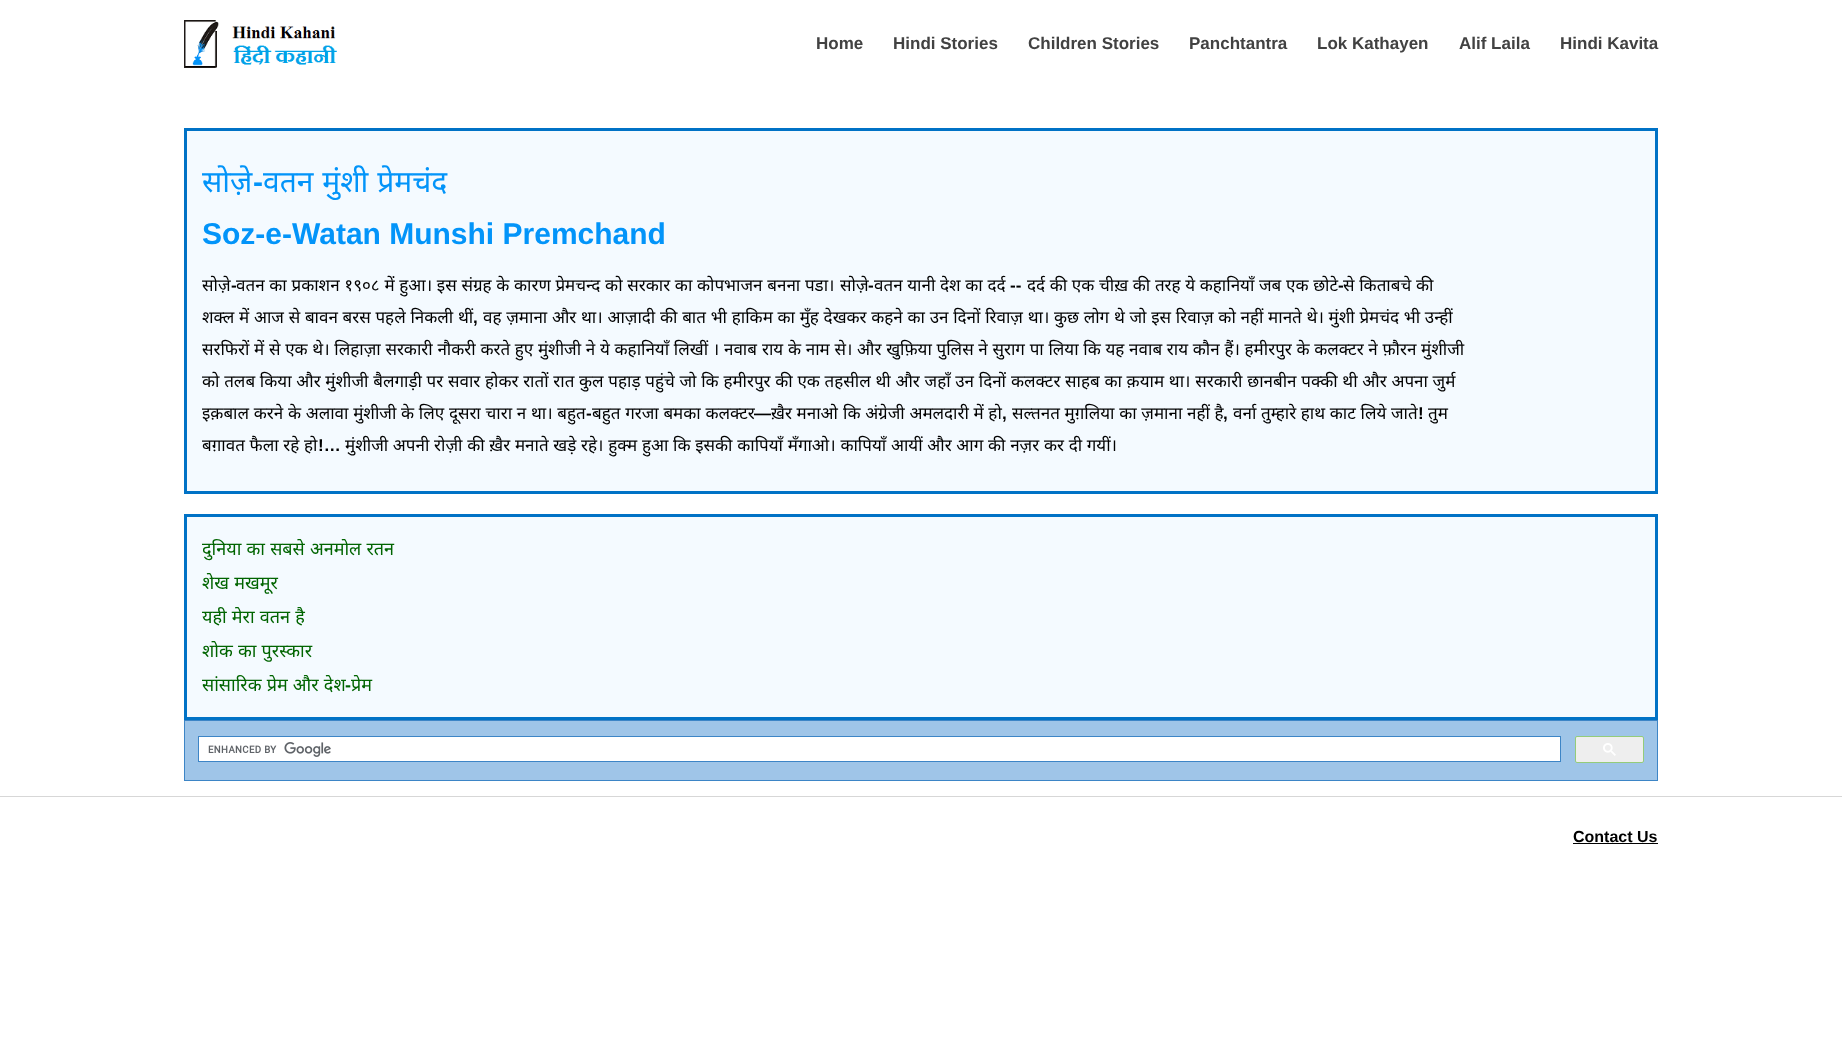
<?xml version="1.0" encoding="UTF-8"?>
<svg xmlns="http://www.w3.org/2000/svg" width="1842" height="1051">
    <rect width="100%" height="100%" fill="#FFFFFF"/>
    <image x="184" y="20" width="153" height="48" href="img_01.png"/>
    <text x="816" y="49" font-family="Liberation Sans" font-size="17" font-weight="700" fill="#424242">Home</text>
    <text x="893" y="49" font-family="Liberation Sans" font-size="17" font-weight="700" fill="#424242">Hindi Stories</text>
    <text x="1028" y="49" font-family="Liberation Sans" font-size="17" font-weight="700" fill="#424242">Children Stories</text>
    <text x="1189" y="49" font-family="Liberation Sans" font-size="17" font-weight="700" fill="#424242">Panchtantra</text>
    <text x="1317" y="49" font-family="Liberation Sans" font-size="17" font-weight="700" fill="#424242">Lok Kathayen</text>
    <text x="1459" y="49" font-family="Liberation Sans" font-size="17" font-weight="700" fill="#424242">Alif Laila</text>
    <text x="1560" y="49" font-family="Liberation Sans" font-size="17" font-weight="700" fill="#424242">Hindi Kavita</text>
    <rect x="185.5" y="129.5" width="1471" height="363" fill="#F4FAFF" stroke="#0072C6" stroke-width="3"/>
    <text x="202" y="192" font-family="Noto Sans" font-size="30" fill="#0294F9">सोज़े</text>
    <text x="253" y="192" font-family="Liberation Sans" font-size="30" font-weight="700" fill="#0294F9">-</text>
    <text x="263" y="192" word-spacing="1" font-family="Noto Sans" font-size="30" fill="#0294F9">वतन मुंशी प्रेमचंद</text>
    <text x="202" y="244" font-family="Liberation Sans" font-size="30" font-weight="700" fill="#0294F9">Soz-e-Watan Munshi Premchand</text>
    <text x="202" y="291" font-family="Noto Sans" font-size="17" fill="#000000">सोज़े</text>
    <text x="231" y="291" font-family="Liberation Sans" font-size="17" font-weight="700" fill="#000000">-</text>
    <text x="236" y="291" word-spacing="0.3" font-family="Noto Sans" font-size="17" fill="#000000">वतन का प्रकाशन १९०८ में हुआ। इस संग्रह के कारण प्रेमचन्द को सरकार का कोपभाजन बनना पडा।</text>
    <text x="840" y="291" font-family="Noto Sans" font-size="17" fill="#000000">सोज़े</text>
    <text x="868" y="291" font-family="Liberation Sans" font-size="17" font-weight="700" fill="#000000">-</text>
    <text x="874" y="291" word-spacing="0.25" font-family="Noto Sans" font-size="17" fill="#000000">वतन यानी देश का दर्द</text>
    <text x="1010" y="291" font-family="Liberation Sans" font-size="17" font-weight="700" fill="#000000">--</text>
    <text x="1027" y="291" word-spacing="0.25" font-family="Noto Sans" font-size="17" fill="#000000">दर्द की एक चीख़ की तरह ये कहानियाँ जब</text>
    <text x="1286" y="291" word-spacing="0.3" font-family="Noto Sans" font-size="17" fill="#000000">एक छोटे</text>
    <text x="1338" y="291" font-family="Liberation Sans" font-size="17" font-weight="700" fill="#000000">-</text>
    <text x="1343" y="291" word-spacing="0.3" font-family="Noto Sans" font-size="17" fill="#000000">से किताबचे की</text>
    <text x="202" y="323" word-spacing="0.3" font-family="Noto Sans" font-size="17" fill="#000000">शक्ल में आज से बावन बरस पहले निकली थीं</text>
    <text x="473" y="323" font-family="Liberation Sans" font-size="17" font-weight="700" fill="#000000">,</text>
    <text x="483" y="323" word-spacing="0.3" font-family="Noto Sans" font-size="17" fill="#000000">वह ज़माना और था। आज़ादी की बात भी हाकिम का मुँह देखकर कहने का उन दिनों रिवाज़ था।</text>
    <text x="1054" y="323" word-spacing="0.3" font-family="Noto Sans" font-size="17" fill="#000000">कुछ लोग थे जो इस रिवाज़ को नहीं मानते थे। मुंशी प्रेमचंद भी उन्हीं</text>
    <text x="202" y="355" word-spacing="0.3" font-family="Noto Sans" font-size="17" fill="#000000">सरफिरों में से एक थे। लिहाज़ा सरकारी नौकरी करते हुए मुंशीजी ने ये कहानियाँ लिखीं । नवाब</text>
    <text x="762" y="355" word-spacing="0.3" font-family="Noto Sans" font-size="17" fill="#000000">राय के नाम से। और खुफ़िया पुलिस ने सुराग पा लिया कि यह नवाब राय कौन हैं। हमीरपुर के कलक्टर ने फ़ौरन मुंशीजी</text>
    <text x="202" y="387" word-spacing="0.3" font-family="Noto Sans" font-size="17" fill="#000000">को तलब किया और मुंशीजी बैलगाड़ी पर सवार होकर रातों रात कुल पहाड़ पहुंचे जो कि हमीरपुर की एक तहसील थी और जहाँ उन दिनों</text>
    <text x="1011" y="387" word-spacing="0.3" font-family="Noto Sans" font-size="17" fill="#000000">कलक्टर साहब का क़याम था। सरकारी छानबीन पक्की थी और अपना जुर्म</text>
    <text x="202" y="419" word-spacing="0.3" font-family="Noto Sans" font-size="17" fill="#000000">इक़बाल करने के अलावा मुंशीजी के लिए दूसरा चारा न था। बहुत</text>
    <text x="592" y="419" word-spacing="0.3" font-family="Noto Sans" font-size="17" fill="#000000">बहुत गरजा बमका कलक्टर</text>
    <text x="754" y="419" font-family="Liberation Sans" font-size="17" font-weight="700" fill="#000000">—</text>
    <text x="771" y="419" word-spacing="0.3" font-family="Noto Sans" font-size="17" fill="#000000">ख़ैर मनाओ</text>
    <text x="843" y="419" word-spacing="0.25" font-family="Noto Sans" font-size="17" fill="#000000">कि अंग्रेजी अमलदारी में हो</text>
    <text x="1012" y="419" word-spacing="0.25" font-family="Noto Sans" font-size="17" fill="#000000">सल्तनत मुग़लिया का ज़माना नहीं है</text>
    <text x="1233" y="419" word-spacing="0.25" font-family="Noto Sans" font-size="17" fill="#000000">वर्ना तुम्हारे हाथ काट लिये</text>
    <text x="1391" y="419" font-family="Noto Sans" font-size="17" fill="#000000">जाते</text>
    <text x="1418" y="419" font-family="Liberation Sans" font-size="17" font-weight="700" fill="#000000">!</text>
    <text x="586" y="419" font-family="Liberation Sans" font-size="17" font-weight="700" fill="#000000">-</text>
    <text x="1428" y="419" font-family="Noto Sans" font-size="17" fill="#000000">तुम</text>
    <text x="1002" y="419" font-family="Liberation Sans" font-size="17" font-weight="700" fill="#000000">,</text>
    <text x="1223" y="419" font-family="Liberation Sans" font-size="17" font-weight="700" fill="#000000">,</text>
    <text x="202" y="451" word-spacing="0.3" font-family="Noto Sans" font-size="17" fill="#000000">बग़ावत फैला रहे हो</text>
    <text x="318" y="451" font-family="Liberation Sans" font-size="17" font-weight="700" fill="#000000">!…</text>
    <text x="345" y="451" word-spacing="0.3" font-family="Noto Sans" font-size="17" fill="#000000">मुंशीजी अपनी रोज़ी की ख़ैर मनाते खड़े रहे। हुक्म हुआ कि इसकी कापियाँ मँगाओ। कापियाँ आयीं और आग की नज़र कर दी गयीं।</text>
    <rect x="185.5" y="515.5" width="1471" height="203" fill="#F4FAFF" stroke="#0072C6" stroke-width="3"/>
    <text font-family="Noto Sans" font-size="18" fill="#006400">
        <tspan x="202" y="555" word-spacing="0.5">दुनिया का सबसे अनमोल रतन</tspan>
        <tspan x="202" y="589" word-spacing="0.5">शेख मखमूर</tspan>
        <tspan x="202" y="623" word-spacing="0.5">यही मेरा वतन है</tspan>
        <tspan x="202" y="657" word-spacing="0.5">शोक का पुरस्कार</tspan>
        <tspan x="202" y="691" word-spacing="0.5">सांसारिक प्रेम और देश</tspan>
    </text>
    <text x="345" y="691" font-family="Liberation Sans" font-size="18" font-weight="700" fill="#006400">-</text>
    <text x="351" y="691" font-family="Noto Sans" font-size="18" fill="#006400">प्रेम</text>
    <rect x="184.5" y="720.5" width="1473" height="60" fill="#9FC5E8" stroke="#3D85C6"/>
    <rect x="198.5" y="736.5" width="1362" height="25" fill="#FFFFFF" stroke="#3D85C6"/>
    <image x="208" y="742" width="123" height="15" href="img_02.png"/>
    <rect x="1575.5" y="736.5" width="68" height="26" rx="1.5" fill="#EEEEEE" stroke="#94CC7A"/>
    <image x="1603" y="743" width="13" height="13" href="img_03.png"/>
    <rect x="0" y="796" width="1842" height="1" fill="#D7D7D7"/>
    <text x="1573" y="842" font-family="Liberation Sans" font-size="16" font-weight="700" fill="#000000">Contact Us</text>
    <rect x="1573" y="843" width="85" height="1" fill="#000000"/>
</svg>
